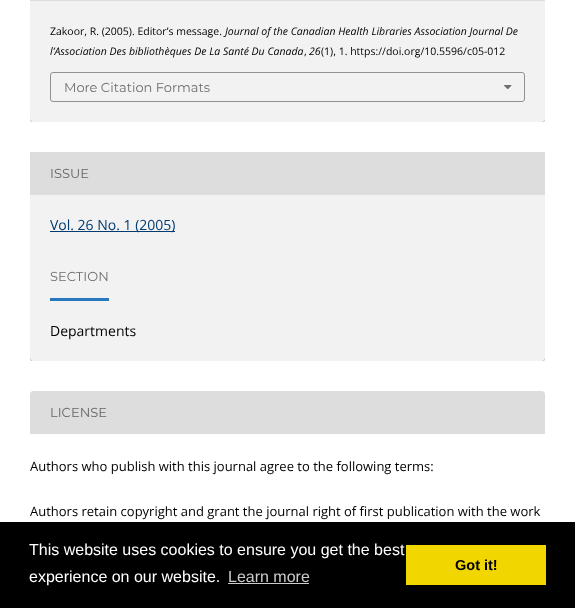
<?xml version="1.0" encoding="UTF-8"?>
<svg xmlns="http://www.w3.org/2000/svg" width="575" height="608">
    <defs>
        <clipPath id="clip1"><path d="M 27 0 H 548 V 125 H 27 Z M 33 -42 H 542 C 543.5 -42 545 -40.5 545 -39 V 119 C 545 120.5 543.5 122 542 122 H 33 C 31.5 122 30 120.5 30 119 V -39 C 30 -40.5 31.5 -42 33 -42 Z" clip-rule="evenodd"/></clipPath>
        <filter id="blur1" x="-50%" y="-200%" width="200%" height="500%"><feGaussianBlur stdDeviation="0.5"/></filter>
        <clipPath id="clip2"><path d="M 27 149 H 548 V 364 H 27 Z M 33 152 H 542 C 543.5 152 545 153.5 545 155 V 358 C 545 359.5 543.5 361 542 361 H 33 C 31.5 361 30 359.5 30 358 V 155 C 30 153.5 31.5 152 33 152 Z" clip-rule="evenodd"/></clipPath>
    </defs>
    <rect width="100%" height="100%" fill="#FFFFFF"/>
    <g clip-path="url(#clip1)">
        <rect x="30" y="-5" width="515" height="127" rx="3" fill="#000000" fill-opacity="0.4" filter="url(#blur1)"/>
    </g>
    <rect x="30" y="1" width="515" height="121" fill="#000000" fill-opacity="0.05"/>
    <rect x="30" y="0" width="515" height="1" fill="#DDDDDD"/>
    <text x="50" y="35" font-family="Open Sans" font-size="10.5" fill="#000000">Zakoor, R. (2005). Editor’s message.</text>
    <text x="225" y="35" font-family="Open Sans" font-size="10.5" font-style="italic" fill="#000000">Journal of the Canadian Health Libraries Association Journal De</text>
    <text x="50" y="55" font-family="Open Sans" font-size="10.5" font-style="italic" fill="#000000">l’Association Des bibliothèques De La Santé Du Canada</text>
    <text x="304" y="55" font-family="Open Sans" font-size="10.5" fill="#000000">,</text>
    <text x="309" y="55" font-family="Open Sans" font-size="10.5" font-style="italic" fill="#000000">26</text>
    <text x="321" y="55" font-family="Open Sans" font-size="10.5" fill="#000000">(1), 1. https://doi.org/10.5596/c05-012</text>
    <rect x="50.5" y="72.5" width="474" height="29" rx="2.5" fill="none" stroke="#919191"/>
    <text x="64" y="92" font-family="Montserrat" font-size="13" fill="#6F6F6F">More Citation Formats</text>
    <image x="504" y="85" width="8" height="5" href="img_01.png"/>
    <g clip-path="url(#clip2)">
        <rect x="30" y="152" width="515" height="209" rx="3" fill="#000000" fill-opacity="0.4" filter="url(#blur1)"/>
    </g>
    <rect x="30" y="152" width="515" height="209" fill="#000000" fill-opacity="0.05"/>
    <path d="M 33 152 H 542 C 543.5 152 545 153.5 545 155 V 195 H 30 V 155 C 30 153.5 31.5 152 33 152 Z" fill="#DDDDDD"/>
    <text x="50" y="178" font-family="Montserrat" font-size="13" fill="#666666">ISSUE</text>
    <rect x="50" y="231" width="125" height="1" fill="#003B71"/>
    <text x="50" y="230" font-family="Open Sans" font-size="14" fill="#003B71">Vol. 26 No. 1 (2005)</text>
    <rect x="50" y="298" width="59" height="3" fill="#2878BD"/>
    <text x="50" y="281" font-family="Montserrat" font-size="13" fill="#6F6F6F">SECTION</text>
    <text x="50" y="336" font-family="Open Sans" font-size="14" fill="#000000">Departments</text>
    <path d="M 33 391 H 542 C 543.5 391 545 392.5 545 394 V 434 H 30 V 394 C 30 392.5 31.5 391 33 391 Z" fill="#DDDDDD"/>
    <text x="50" y="417" font-family="Montserrat" font-size="13" fill="#666666">LICENSE</text>
    <text x="30" y="471" font-family="Open Sans" font-size="13" fill="#000000">Authors who publish with this journal agree to the following terms:</text>
    <text x="30" y="516" font-family="Open Sans" font-size="13" fill="#000000">Authors retain copyright and grant the journal right of first publication with the work</text>
    <rect x="0" y="522" width="575" height="86" fill="#000000"/>
    <text font-family="Liberation Sans" font-size="16" fill="#FFFFFF">
        <tspan x="29" y="555">This website uses cookies to ensure you get the best</tspan>
        <tspan x="29" y="582">experience on our website.</tspan>
    </text>
    <text x="228" y="582" font-family="Liberation Sans" font-size="16" fill="#CCCCCC">Learn more</text>
    <rect x="228" y="583" width="81" height="1" fill="#CCCCCC"/>
    <rect x="406" y="545" width="140" height="40" fill="#F1D600"/>
    <text x="455" y="570" font-family="Liberation Sans" font-size="14.5" font-weight="700" fill="#000000">Got it!</text>
</svg>
